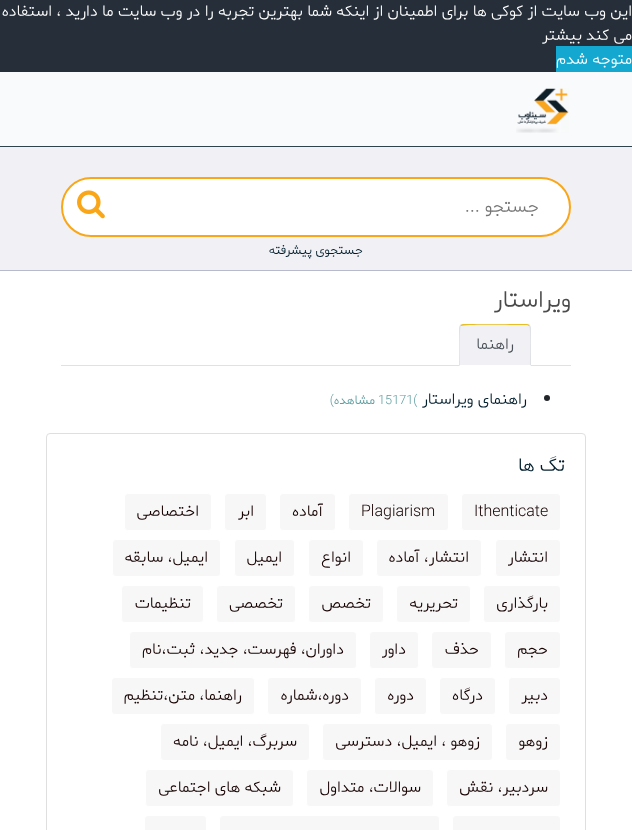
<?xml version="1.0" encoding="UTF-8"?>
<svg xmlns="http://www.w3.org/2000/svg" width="632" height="830">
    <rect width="100%" height="100%" fill="#FFFFFF"/>
    <rect x="0" y="0" width="632" height="72" fill="#252E39"/>
    <text font-family="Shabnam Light" font-size="16" font-weight="300" direction="rtl" fill="#FFFFFF">
        <tspan x="632" y="16">این وب سایت از کوکی ها برای اطمینان از اینکه شما بهترین تجربه را در وب سایت ما دارید ، استفاده</tspan>
        <tspan x="632" y="40">می کند</tspan>
    </text>
    <text x="582" y="40" font-family="Shabnam Light" font-size="16" font-weight="300" direction="rtl" fill="#FFFFFF">بیشتر</text>
    <rect x="556" y="46" width="76" height="26" fill="#14A7D0"/>
    <text x="632" y="64" font-family="Shabnam Light" font-size="16" font-weight="300" direction="rtl" fill="#FFFFFF">متوجه شدم</text>
    <rect x="0" y="72" width="632" height="74" fill="#F8FAFB"/>
    <image x="516" y="88" width="53" height="45" href="img_01.png"/>
    <rect x="0" y="147" width="632" height="123" fill="#F1F1F5"/>
    <rect x="0" y="146" width="632" height="1" fill="#2F414A"/>
    <rect x="0" y="270" width="632" height="1" fill="#B7B9CC"/>
    <rect x="62" y="178" width="508" height="58" rx="29" fill="#FFFFFF" stroke="#F9A618" stroke-width="2"/>
    <text x="539" y="212" font-family="Shabnam Light" font-size="18" font-weight="300" direction="rtl" fill="#757575">جستجو ...</text>
    <image x="77" y="190" width="28" height="29" href="img_02.png"/>
    <text x="363" y="254" font-family="Shabnam Light" font-size="12.75" font-weight="300" direction="rtl" fill="#001D2B">جستجوی پیشرفته</text>
    <text x="571" y="307" font-family="Shabnam Light" font-size="24" font-weight="300" direction="rtl" fill="#4B4B4C">ویراستار</text>
    <rect x="61" y="365" width="510" height="1" fill="#DEE2E6"/>
    <path d="M 463 324 H 527 C 529 324 531 326 531 328 V 366 H 459 V 328 C 459 326 461 324 463 324 Z" fill="#F1F1F5"/>
    <path d="M 463 324 L 460 325 L 461 326 C 463 324 510 325 516 325 H 527 L 529 326 L 530 325 L 527 324 Z" fill="#E8BE25"/>
    <path d="M 531 366 V 328 C 531 327 530 326 530 325 L 529 326 C 531 328 530 360 530 365 Z" fill="#DEE2E6"/>
    <path d="M 531 366 L 530 365 H 460 L 459 366 Z" fill="#FFFFFF"/>
    <path d="M 459 366 L 460 365 C 460 360 459 328 461 326 L 460 325 L 459 328 Z" fill="#DEE2E6"/>
    <text x="514" y="349" font-family="Shabnam Light" font-size="16" font-weight="300" direction="rtl" fill="#495057">راهنما</text>
    <circle cx="547" cy="398" r="3" fill="#212529"/>
    <text x="527" y="404" font-family="Shabnam Light" font-size="16" font-weight="300" direction="rtl" fill="#001D2B">راهنمای ویراستار</text>
    <text x="378" y="404" font-family="Shabnam Light" font-size="12.75" font-weight="300" fill="#5F9EA0">15171(</text>
    <text x="375" y="404" font-family="Shabnam Light" font-size="12.75" font-weight="300" direction="rtl" fill="#5F9EA0">مشاهده)</text>
    <rect x="46.5" y="433.5" width="539" height="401" rx="3.5" fill="none" stroke="#DFDFDF"/>
    <text x="565" y="471" font-family="Shabnam Light" font-size="19" font-weight="300" direction="rtl" fill="#001D2B">تگ ها</text>
    <rect x="461.5" y="493.5" width="99" height="37" rx="3.5" fill="#F7F7F7" stroke="#FFFFFF"/>
    <text x="474" y="516" font-family="Shabnam Light" font-size="16" font-weight="300" fill="#170202">Ithenticate</text>
    <rect x="348.5" y="493.5" width="100" height="37" rx="3.5" fill="#F7F7F7" stroke="#FFFFFF"/>
    <text x="361" y="516" font-family="Shabnam Light" font-size="16" font-weight="300" fill="#170202">Plagiarism</text>
    <rect x="279.5" y="493.5" width="56" height="37" rx="3.5" fill="#F7F7F7" stroke="#FFFFFF"/>
    <text x="323" y="516" font-family="Shabnam Light" font-size="16" font-weight="300" direction="rtl" fill="#170202">آماده</text>
    <rect x="224.5" y="493.5" width="42" height="37" rx="3.5" fill="#F7F7F7" stroke="#FFFFFF"/>
    <text x="254" y="516" font-family="Shabnam Light" font-size="16" font-weight="300" direction="rtl" fill="#170202">ابر</text>
    <rect x="124.5" y="493.5" width="87" height="37" rx="3.5" fill="#F7F7F7" stroke="#FFFFFF"/>
    <text x="199" y="516" font-family="Shabnam Light" font-size="16" font-weight="300" direction="rtl" fill="#170202">اختصاصی</text>
    <rect x="495.5" y="539.5" width="65" height="37" rx="3.5" fill="#F7F7F7" stroke="#FFFFFF"/>
    <text x="548" y="562" font-family="Shabnam Light" font-size="16" font-weight="300" direction="rtl" fill="#170202">انتشار</text>
    <rect x="376.5" y="539.5" width="105" height="37" rx="3.5" fill="#F7F7F7" stroke="#FFFFFF"/>
    <text x="469" y="562" font-family="Shabnam Light" font-size="16" font-weight="300" direction="rtl" fill="#170202">انتشار، آماده</text>
    <rect x="308.5" y="539.5" width="55" height="37" rx="3.5" fill="#F7F7F7" stroke="#FFFFFF"/>
    <text x="351" y="562" font-family="Shabnam Light" font-size="16" font-weight="300" direction="rtl" fill="#170202">انواع</text>
    <rect x="234.5" y="539.5" width="60" height="37" rx="3.5" fill="#F7F7F7" stroke="#FFFFFF"/>
    <text x="282" y="562" font-family="Shabnam Light" font-size="16" font-weight="300" direction="rtl" fill="#170202">ایمیل</text>
    <rect x="112.5" y="539.5" width="108" height="37" rx="3.5" fill="#F7F7F7" stroke="#FFFFFF"/>
    <text x="208" y="562" font-family="Shabnam Light" font-size="16" font-weight="300" direction="rtl" fill="#170202">ایمیل، سابقه</text>
    <rect x="483.5" y="585.5" width="77" height="37" rx="3.5" fill="#F7F7F7" stroke="#FFFFFF"/>
    <text x="548" y="608" font-family="Shabnam Light" font-size="16" font-weight="300" direction="rtl" fill="#170202">بارگذاری</text>
    <rect x="396.5" y="585.5" width="74" height="37" rx="3.5" fill="#F7F7F7" stroke="#FFFFFF"/>
    <text x="458" y="608" font-family="Shabnam Light" font-size="16" font-weight="300" direction="rtl" fill="#170202">تحریریه</text>
    <rect x="308.5" y="585.5" width="75" height="37" rx="3.5" fill="#F7F7F7" stroke="#FFFFFF"/>
    <text x="371" y="608" font-family="Shabnam Light" font-size="16" font-weight="300" direction="rtl" fill="#170202">تخصص</text>
    <rect x="216.5" y="585.5" width="79" height="37" rx="3.5" fill="#F7F7F7" stroke="#FFFFFF"/>
    <text x="283" y="608" font-family="Shabnam Light" font-size="16" font-weight="300" direction="rtl" fill="#170202">تخصصی</text>
    <rect x="121.5" y="585.5" width="82" height="37" rx="3.5" fill="#F7F7F7" stroke="#FFFFFF"/>
    <text x="191" y="608" font-family="Shabnam Light" font-size="16" font-weight="300" direction="rtl" fill="#170202">تنظیمات</text>
    <rect x="504.5" y="631.5" width="56" height="37" rx="3.5" fill="#F7F7F7" stroke="#FFFFFF"/>
    <text x="548" y="654" font-family="Shabnam Light" font-size="16" font-weight="300" direction="rtl" fill="#170202">حجم</text>
    <rect x="431.5" y="631.5" width="60" height="37" rx="3.5" fill="#F7F7F7" stroke="#FFFFFF"/>
    <text x="479" y="654" font-family="Shabnam Light" font-size="16" font-weight="300" direction="rtl" fill="#170202">حذف</text>
    <rect x="369.5" y="631.5" width="49" height="37" rx="3.5" fill="#F7F7F7" stroke="#FFFFFF"/>
    <text x="406" y="654" font-family="Shabnam Light" font-size="16" font-weight="300" direction="rtl" fill="#170202">داور</text>
    <rect x="129.5" y="631.5" width="227" height="37" rx="3.5" fill="#F7F7F7" stroke="#FFFFFF"/>
    <text x="344" y="654" font-family="Shabnam Light" font-size="16" font-weight="300" direction="rtl" fill="#170202">داوران، فهرست، جدید، ثبت،نام</text>
    <rect x="508.5" y="677.5" width="52" height="37" rx="3.5" fill="#F7F7F7" stroke="#FFFFFF"/>
    <text x="548" y="700" font-family="Shabnam Light" font-size="16" font-weight="300" direction="rtl" fill="#170202">دبیر</text>
    <rect x="439.5" y="677.5" width="56" height="37" rx="3.5" fill="#F7F7F7" stroke="#FFFFFF"/>
    <text x="483" y="700" font-family="Shabnam Light" font-size="16" font-weight="300" direction="rtl" fill="#170202">درگاه</text>
    <rect x="374.5" y="677.5" width="52" height="37" rx="3.5" fill="#F7F7F7" stroke="#FFFFFF"/>
    <text x="414" y="700" font-family="Shabnam Light" font-size="16" font-weight="300" direction="rtl" fill="#170202">دوره</text>
    <rect x="267.5" y="677.5" width="94" height="37" rx="3.5" fill="#F7F7F7" stroke="#FFFFFF"/>
    <text x="349" y="700" font-family="Shabnam Light" font-size="16" font-weight="300" direction="rtl" fill="#170202">دوره،شماره</text>
    <rect x="111.5" y="677.5" width="143" height="37" rx="3.5" fill="#F7F7F7" stroke="#FFFFFF"/>
    <text x="242" y="700" font-family="Shabnam Light" font-size="16" font-weight="300" direction="rtl" fill="#170202">راهنما، متن،تنظیم</text>
    <rect x="505.5" y="723.5" width="55" height="37" rx="3.5" fill="#F7F7F7" stroke="#FFFFFF"/>
    <text x="548" y="746" font-family="Shabnam Light" font-size="16" font-weight="300" direction="rtl" fill="#170202">زوهو</text>
    <rect x="322.5" y="723.5" width="170" height="37" rx="3.5" fill="#F7F7F7" stroke="#FFFFFF"/>
    <text x="480" y="746" font-family="Shabnam Light" font-size="16" font-weight="300" direction="rtl" fill="#170202">زوهو ، ایمیل، دسترسی</text>
    <rect x="160.5" y="723.5" width="149" height="37" rx="3.5" fill="#F7F7F7" stroke="#FFFFFF"/>
    <text x="297" y="746" font-family="Shabnam Light" font-size="16" font-weight="300" direction="rtl" fill="#170202">سربرگ، ایمیل، نامه</text>
    <rect x="446.5" y="769.5" width="114" height="37" rx="3.5" fill="#F7F7F7" stroke="#FFFFFF"/>
    <text x="548" y="792" font-family="Shabnam Light" font-size="16" font-weight="300" direction="rtl" fill="#170202">سردبیر، نقش</text>
    <rect x="306.5" y="769.5" width="127" height="37" rx="3.5" fill="#F7F7F7" stroke="#FFFFFF"/>
    <text x="421" y="792" font-family="Shabnam Light" font-size="16" font-weight="300" direction="rtl" fill="#170202">سوالات، متداول</text>
    <rect x="145.5" y="769.5" width="148" height="37" rx="3.5" fill="#F7F7F7" stroke="#FFFFFF"/>
    <text x="281" y="792" font-family="Shabnam Light" font-size="16" font-weight="300" direction="rtl" fill="#170202">شبکه های اجتماعی</text>
    <rect x="452.5" y="815.5" width="108" height="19" rx="3.5" fill="#F7F7F7" stroke="#FFFFFF"/>
    <rect x="219.5" y="815.5" width="220" height="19" rx="3.5" fill="#F7F7F7" stroke="#FFFFFF"/>
    <rect x="144.5" y="815.5" width="62" height="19" rx="3.5" fill="#F7F7F7" stroke="#FFFFFF"/>
</svg>
